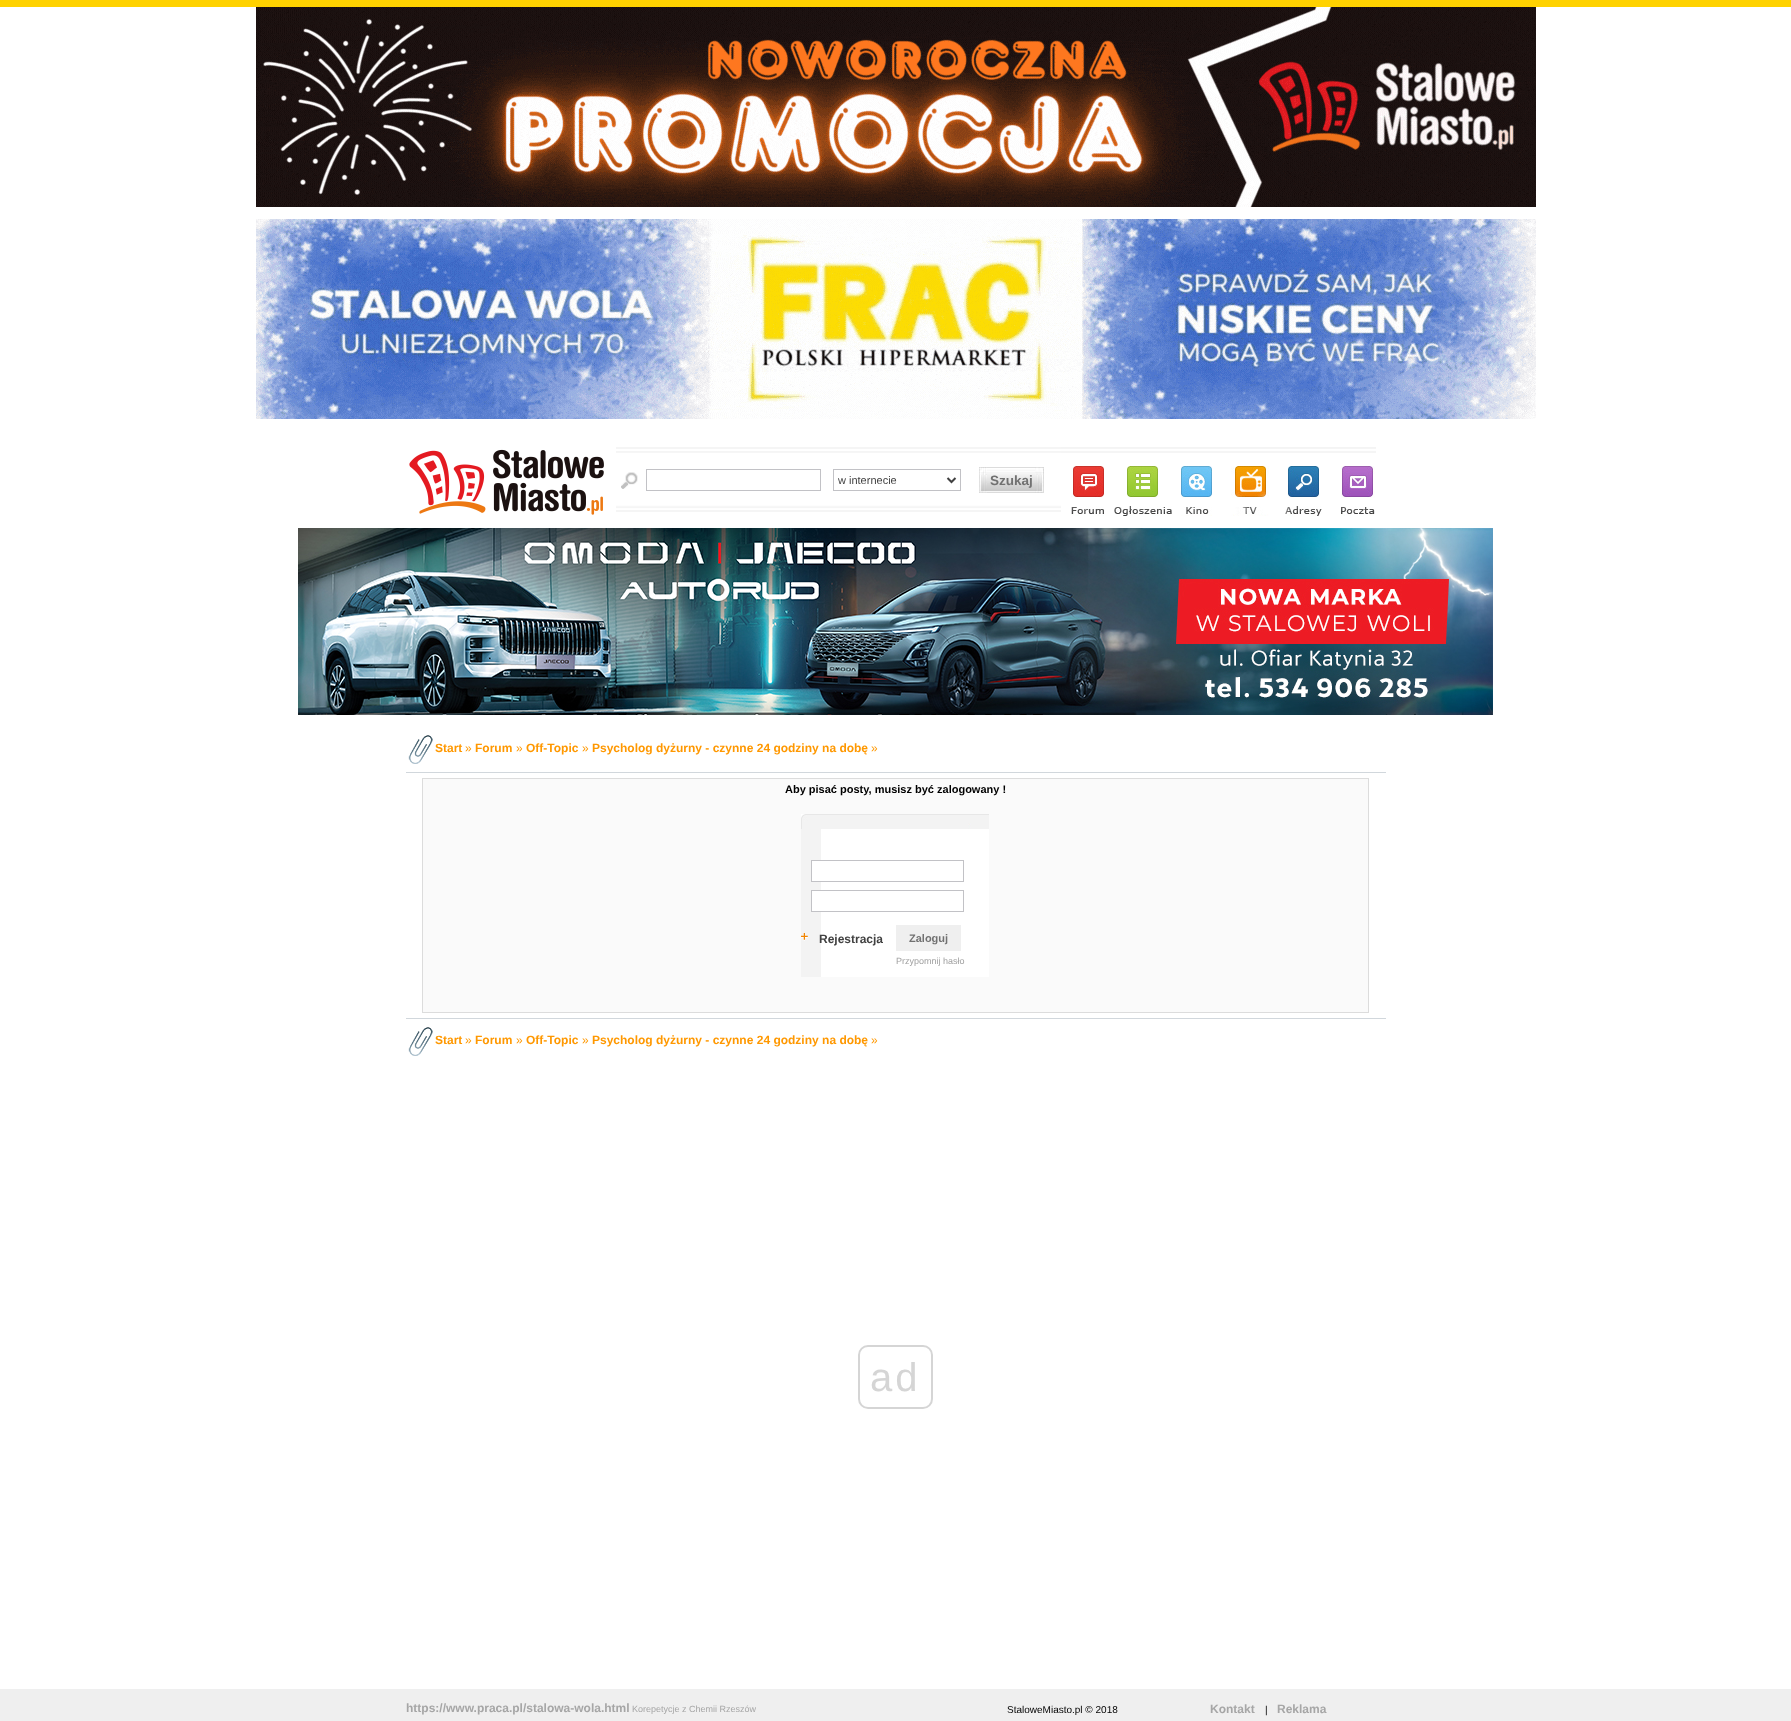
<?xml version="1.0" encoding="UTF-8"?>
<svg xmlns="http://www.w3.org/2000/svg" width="1791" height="1721">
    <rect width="100%" height="100%" fill="#FFFFFF"/>
    <rect x="0" y="0" width="1791" height="7" fill="#FFD200"/>
    <image x="256" y="7" width="1280" height="200" href="img_01.png"/>
    <image x="256" y="219" width="1280" height="200" href="img_02.png"/>
    <image x="409" y="449" width="195" height="66" href="img_03.png"/>
    <image x="616" y="447" width="445" height="65" href="img_04.png"/>
    <image x="621" y="472" width="17" height="17" href="img_05.png"/>
    <rect x="646.5" y="469.5" width="174" height="21" fill="none" stroke="#C2C2C6"/>
    <rect x="833.5" y="469.5" width="127" height="21" fill="none" stroke="#C2C2C6"/>
    <path d="M 947.5 478 L 951.5 482 L 955.5 478" fill="none" stroke="#414141" stroke-width="2"/>
    <text x="838" y="484" font-family="Liberation Sans" font-size="11" fill="#414141">w internecie</text>
    <image x="979" y="467" width="65" height="26" href="img_06.png"/>
    <text x="990" y="485" font-family="Liberation Sans" font-size="13.5" font-weight="700" fill="#717171">Szukaj</text>
    <image x="1061" y="447" width="315" height="6" href="img_07.png"/>
    <image x="1071" y="466" width="33" height="50" href="img_08.png"/>
    <image x="1114" y="466" width="58" height="50" href="img_09.png"/>
    <image x="1181" y="466" width="31" height="50" href="img_10.png"/>
    <image x="1231" y="466" width="38" height="50" href="img_11.png"/>
    <image x="1285" y="466" width="37" height="50" href="img_12.png"/>
    <image x="1341" y="466" width="34" height="50" href="img_13.png"/>
    <image x="298" y="528" width="1195" height="187" href="img_14.png"/>
    <image x="408" y="735" width="25" height="29" href="img_15.png"/>
    <text x="435" y="752" font-family="Liberation Sans" font-size="12" font-weight="700" fill="#FF9800">Start</text>
    <text x="465" y="752" font-family="Liberation Sans" font-size="12" fill="#FF9800">»</text>
    <text x="475" y="752" font-family="Liberation Sans" font-size="12" font-weight="700" fill="#FF9800">Forum</text>
    <text x="516" y="752" font-family="Liberation Sans" font-size="12" fill="#FF9800">»</text>
    <text x="526" y="752" font-family="Liberation Sans" font-size="12" font-weight="700" fill="#FF9800">Off-Topic</text>
    <text x="582" y="752" font-family="Liberation Sans" font-size="12" fill="#FF9800">»</text>
    <text x="592" y="752" font-family="Liberation Sans" font-size="12" font-weight="700" fill="#FF9800">Psycholog dyżurny - czynne 24 godziny na dobę</text>
    <text x="871" y="752" font-family="Liberation Sans" font-size="12" fill="#FF9800">»</text>
    <rect x="406" y="772" width="980" height="1" fill="#D1D7DC"/>
    <rect x="422.5" y="778.5" width="946" height="234" fill="#FAFAFA" stroke="#DCDCDC"/>
    <text x="785" y="793" font-family="Liberation Sans" font-size="11" font-weight="700" fill="#000000">Aby pisać posty, musisz być zalogowany !</text>
    <rect x="821" y="829" width="168" height="148" fill="#FFFFFF"/>
    <rect x="801" y="829" width="20" height="148" fill="#F3F3F3"/>
    <image x="801" y="814" width="188" height="15" href="img_16.png"/>
    <rect x="812" y="861" width="9" height="20" fill="#FFFFFF"/>
    <rect x="811.5" y="860.5" width="152" height="21" fill="none" stroke="#C2C2C6"/>
    <rect x="812" y="891" width="9" height="20" fill="#FFFFFF"/>
    <rect x="811.5" y="890.5" width="152" height="21" fill="none" stroke="#C2C2C6"/>
    <image x="801" y="933" width="7" height="8" href="img_17.png"/>
    <text x="819" y="943" font-family="Liberation Sans" font-size="12" font-weight="700" fill="#414141">Rejestracja</text>
    <rect x="896" y="925" width="65" height="26" fill="#EFEFEF"/>
    <text x="909" y="942" font-family="Liberation Sans" font-size="11" font-weight="700" fill="#717171">Zaloguj</text>
    <text x="896" y="964" font-family="Liberation Sans" font-size="9" fill="#A0A0A0">Przypomnij hasło</text>
    <rect x="406" y="1018" width="980" height="1" fill="#D1D7DC"/>
    <image x="408" y="1027" width="25" height="29" href="img_15.png"/>
    <text x="435" y="1044" font-family="Liberation Sans" font-size="12" font-weight="700" fill="#FF9800">Start</text>
    <text x="465" y="1044" font-family="Liberation Sans" font-size="12" fill="#FF9800">»</text>
    <text x="475" y="1044" font-family="Liberation Sans" font-size="12" font-weight="700" fill="#FF9800">Forum</text>
    <text x="516" y="1044" font-family="Liberation Sans" font-size="12" fill="#FF9800">»</text>
    <text x="526" y="1044" font-family="Liberation Sans" font-size="12" font-weight="700" fill="#FF9800">Off-Topic</text>
    <text x="582" y="1044" font-family="Liberation Sans" font-size="12" fill="#FF9800">»</text>
    <text x="592" y="1044" font-family="Liberation Sans" font-size="12" font-weight="700" fill="#FF9800">Psycholog dyżurny - czynne 24 godziny na dobę</text>
    <text x="871" y="1044" font-family="Liberation Sans" font-size="12" fill="#FF9800">»</text>
    <rect x="859" y="1346" width="73" height="62" rx="9" fill="none" stroke="#D5D5D5" stroke-width="2"/>
    <text x="870" y="1391" font-family="Liberation Sans" font-size="40" letter-spacing="3" fill="#D5D5D5">ad</text>
    <rect x="0" y="1689" width="1791" height="32" fill="#EFEFEF"/>
    <text x="406" y="1712" font-family="Liberation Sans" font-size="12" font-weight="700" fill="#A6A6A6">https://www.praca.pl/stalowa-wola.html</text>
    <text x="632" y="1712" font-family="Liberation Sans" font-size="9" fill="#A6A6A6">Korepetycje z Chemii Rzeszów</text>
    <text x="1007" y="1713" font-family="Liberation Sans" font-size="10" fill="#000000">StaloweMiasto.pl © 2018</text>
    <text x="1210" y="1713" font-family="Liberation Sans" font-size="12" font-weight="700" fill="#A6A6A6">Kontakt</text>
    <text x="1265" y="1713" font-family="Liberation Sans" font-size="10" fill="#000000">|</text>
    <text x="1277" y="1713" font-family="Liberation Sans" font-size="12" font-weight="700" fill="#A6A6A6">Reklama</text>
</svg>
